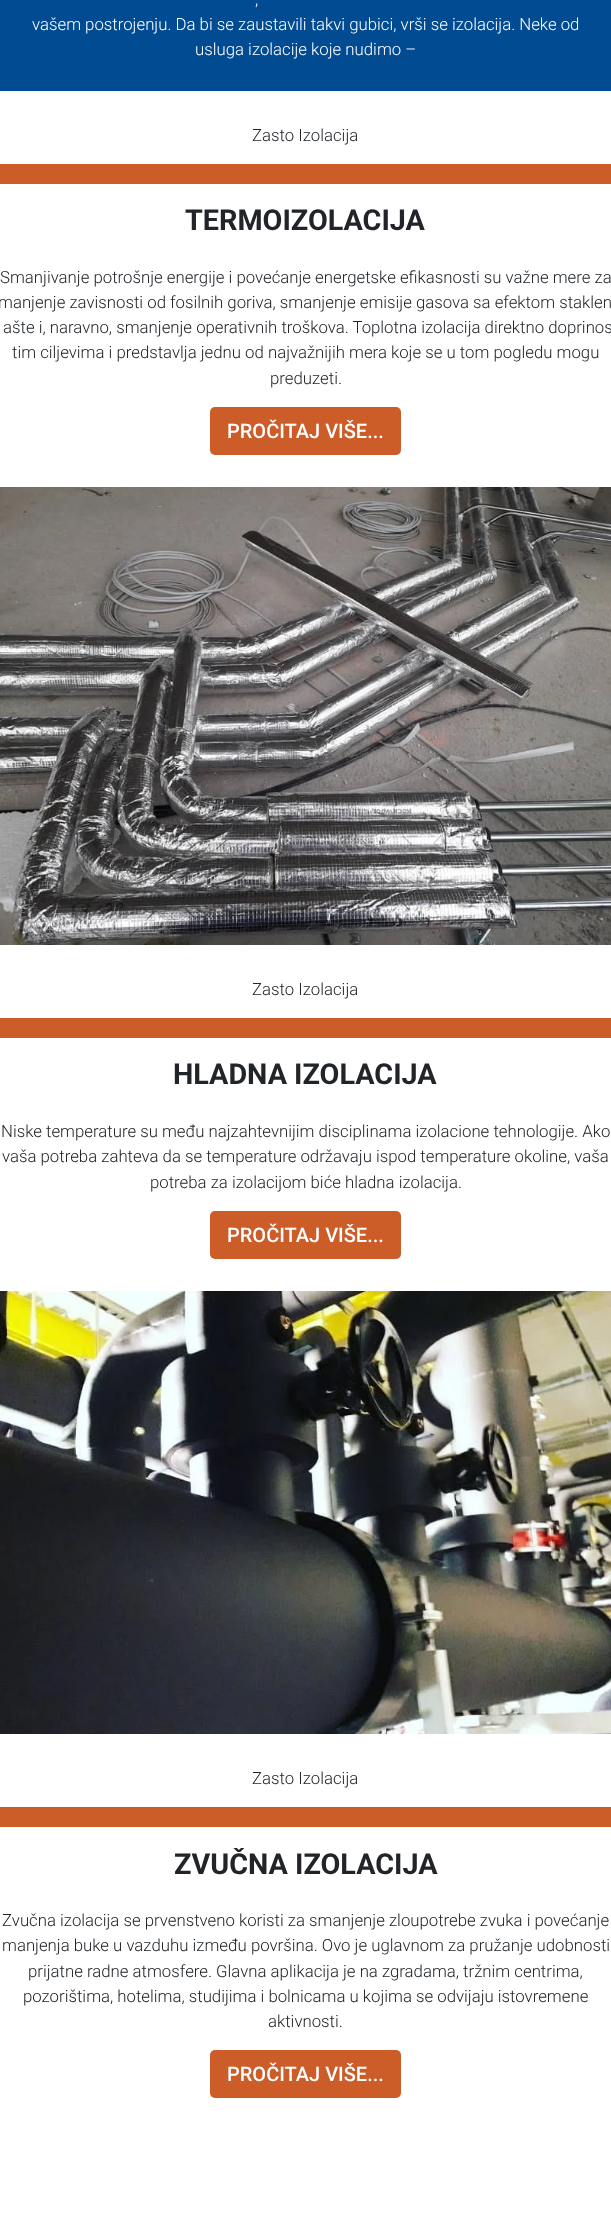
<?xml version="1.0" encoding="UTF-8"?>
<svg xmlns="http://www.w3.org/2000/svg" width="611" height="2223">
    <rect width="100%" height="100%" fill="#FFFFFF"/>
    <rect x="0" y="0" width="611" height="91" fill="#014B92"/>
    <text x="255" y="5" font-family="Roboto" font-size="16.8" font-weight="300" fill="#FFFFFF">,</text>
    <text x="32" y="30" font-family="Roboto" font-size="16.8" font-weight="300" fill="#FFFFFF">vašem postrojenju. Da bi se zaustavili takvi gubici, vrši se izolacija. Neke od</text>
    <text x="195" y="55" font-family="Roboto" font-size="16.8" font-weight="300" fill="#FFFFFF">usluga izolacije koje nudimo –</text>
    <rect x="0" y="164" width="611" height="20" fill="#CC5C28"/>
    <text x="252" y="141" font-family="Roboto" font-size="16.8" font-weight="300" fill="#212529">Zasto Izolacija</text>
    <text x="185" y="230" font-family="Roboto" font-size="28.75" font-weight="700" fill="#212529">TERMOIZOLACIJA</text>
    <text x="0" y="283" font-family="Roboto" font-size="16.8" font-weight="300" fill="#212529">Smanjivanje potrošnje energije i povećanje energetske efikasnosti su važne mere za</text>
    <text x="-2" y="308" font-family="Roboto" font-size="16.8" font-weight="300" fill="#212529">manjenje zavisnosti od fosilnih goriva, smanjenje emisije gasova sa efektom staklen</text>
    <text x="3" y="333" font-family="Roboto" font-size="16.8" font-weight="300" fill="#212529">ašte i, naravno, smanjenje operativnih troškova. Toplotna izolacija direktno doprinos</text>
    <text x="12" y="358" font-family="Roboto" font-size="16.8" font-weight="300" fill="#212529">tim ciljevima i predstavlja jednu od najvažnijih mera koje se u tom pogledu mogu</text>
    <text x="270" y="384" font-family="Roboto" font-size="16.8" font-weight="300" fill="#212529">preduzeti.</text>
    <rect x="210" y="407" width="191" height="48" rx="5" fill="#CC5C28"/>
    <text x="227" y="438" font-family="Roboto" font-size="20" font-weight="500" fill="#FFFFFF">PROČITAJ VIŠE...</text>
    <image x="0" y="487" width="611" height="458" href="img_01.png"/>
    <rect x="0" y="1018" width="611" height="20" fill="#CC5C28"/>
    <text x="252" y="995" font-family="Roboto" font-size="16.8" font-weight="300" fill="#212529">Zasto Izolacija</text>
    <text x="173" y="1084" font-family="Roboto" font-size="28.75" font-weight="700" fill="#212529">HLADNA IZOLACIJA</text>
    <text x="1" y="1137" font-family="Roboto" font-size="16.8" font-weight="300" fill="#212529">Niske temperature su među najzahtevnijim disciplinama izolacione tehnologije. Ako</text>
    <text x="2" y="1162" font-family="Roboto" font-size="16.8" font-weight="300" fill="#212529">vaša potreba zahteva da se temperature održavaju ispod temperature okoline, vaša</text>
    <text x="150" y="1188" font-family="Roboto" font-size="16.8" font-weight="300" fill="#212529">potreba za izolacijom biće hladna izolacija.</text>
    <rect x="210" y="1211" width="191" height="48" rx="5" fill="#CC5C28"/>
    <text x="227" y="1242" font-family="Roboto" font-size="20" font-weight="500" fill="#FFFFFF">PROČITAJ VIŠE...</text>
    <image x="0" y="1291" width="611" height="443" href="img_02.png"/>
    <rect x="0" y="1807" width="611" height="20" fill="#CC5C28"/>
    <text x="252" y="1784" font-family="Roboto" font-size="16.8" font-weight="300" fill="#212529">Zasto Izolacija</text>
    <text x="174" y="1874" font-family="Roboto" font-size="28.75" font-weight="700" fill="#212529">ZVUČNA IZOLACIJA</text>
    <text font-family="Roboto" font-size="16.8" font-weight="300" fill="#212529">
        <tspan x="2" y="1926">Zvučna izolacija se prvenstveno koristi za smanjenje zloupotrebe zvuka i povećanje</tspan>
        <tspan x="2" y="1951">manjenja buke u vazduhu između površina. Ovo je uglavnom za pružanje udobnosti</tspan>
    </text>
    <text x="28" y="1977" font-family="Roboto" font-size="16.8" font-weight="300" fill="#212529">prijatne radne atmosfere. Glavna aplikacija je na zgradama, tržnim centrima,</text>
    <text x="23" y="2002" font-family="Roboto" font-size="16.8" font-weight="300" fill="#212529">pozorištima, hotelima, studijima i bolnicama u kojima se odvijaju istovremene</text>
    <text x="268" y="2027" font-family="Roboto" font-size="16.8" font-weight="300" fill="#212529">aktivnosti.</text>
    <rect x="210" y="2050" width="191" height="48" rx="5" fill="#CC5C28"/>
    <text x="227" y="2081" font-family="Roboto" font-size="20" font-weight="500" fill="#FFFFFF">PROČITAJ VIŠE...</text>
</svg>
